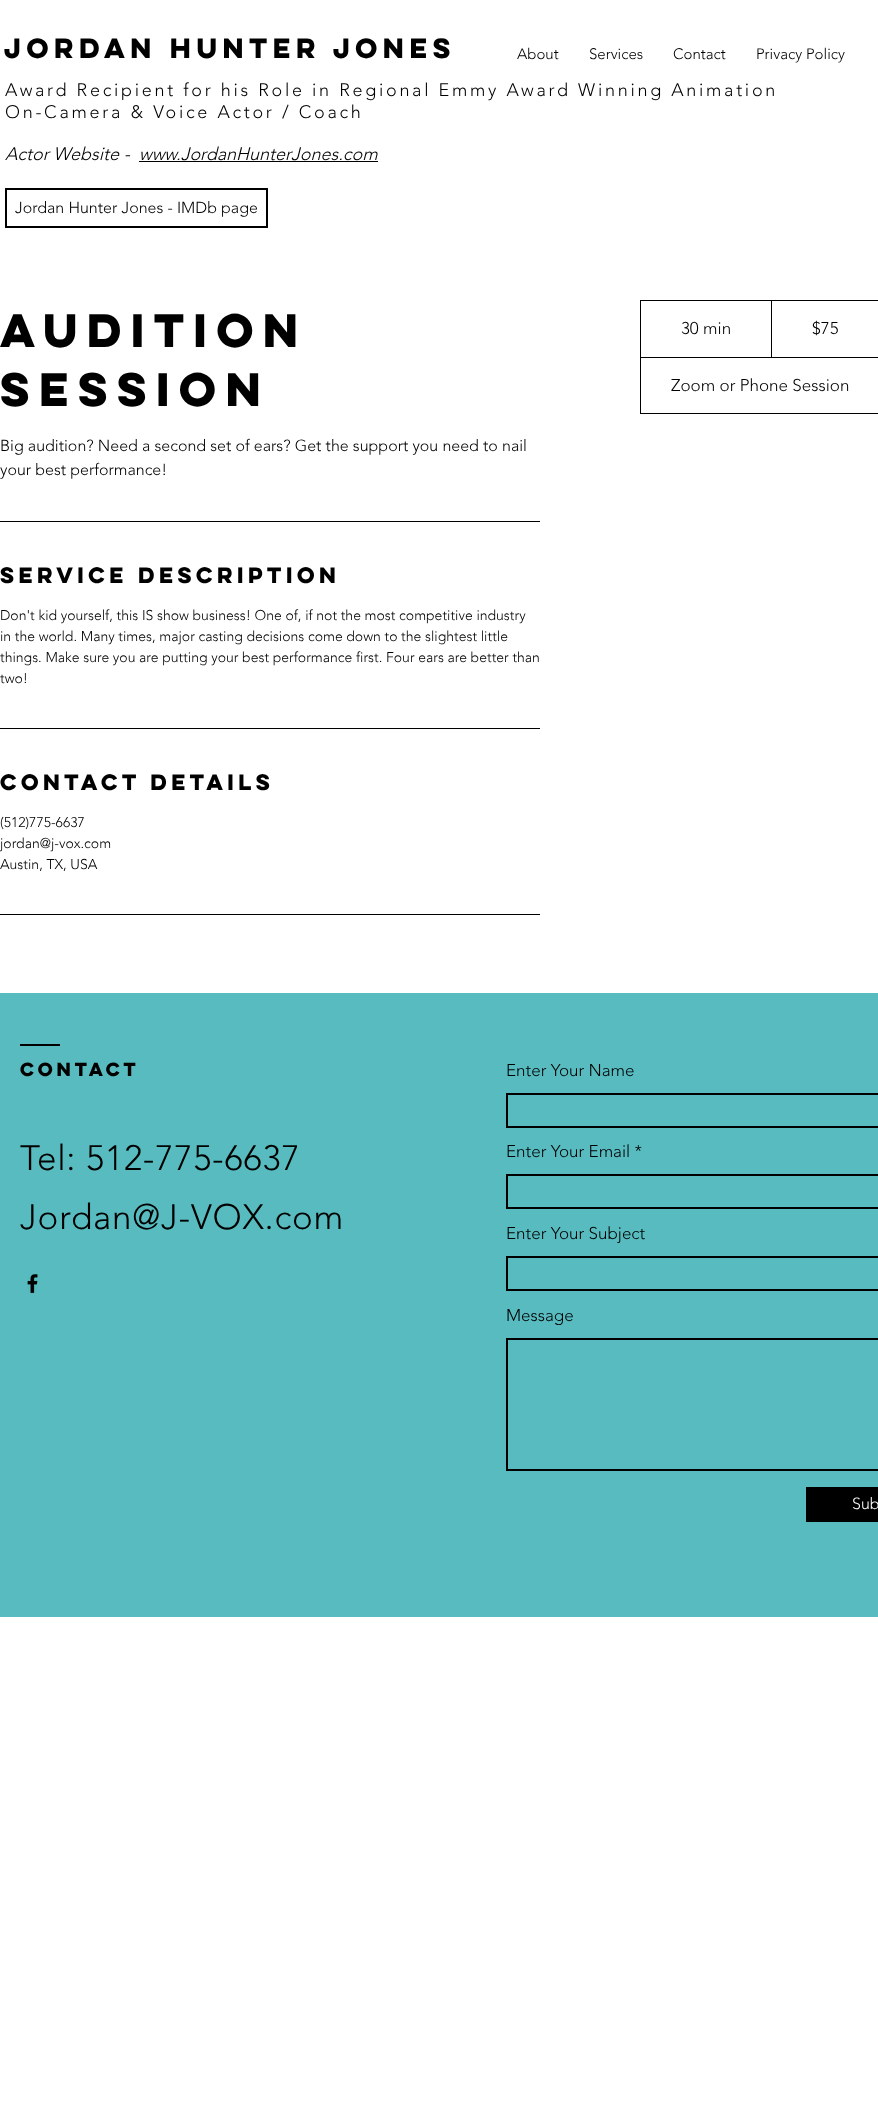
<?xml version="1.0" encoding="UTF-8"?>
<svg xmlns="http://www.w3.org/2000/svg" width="878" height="2118">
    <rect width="100%" height="100%" fill="#FFFFFF"/>
    <text x="4" y="58" font-family="'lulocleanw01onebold'" font-size="25" font-weight="700" fill="#000000">Jordan Hunter Jones</text>
    <text x="517" y="59" font-family="'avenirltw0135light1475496'" font-size="15" font-weight="300" fill="#000000">About</text>
    <text x="589" y="59" font-family="'avenirltw0135light1475496'" font-size="15" font-weight="300" fill="#000000">Services</text>
    <text x="673" y="59" font-family="'avenirltw0135light1475496'" font-size="15" font-weight="300" fill="#000000">Contact</text>
    <text x="756" y="59" font-family="'avenirltw0135light1475496'" font-size="15" font-weight="300" fill="#000000">Privacy Policy</text>
    <text font-family="'avenirltw0135light1475496'" font-size="18" font-weight="300" letter-spacing="2.7" fill="#000000">
        <tspan x="5" y="96">Award Recipient for his Role in Regional Emmy Award Winning Animation</tspan>
        <tspan x="5" y="118">On-Camera &amp; Voice Actor / Coach</tspan>
    </text>
    <text x="5" y="160" font-family="'avenirltw0135light1475496'" font-size="18" font-weight="300" font-style="italic" fill="#000000">Actor Website -</text>
    <text x="139" y="160" font-family="'avenirltw0135light1475496'" font-size="18" font-weight="300" font-style="italic" fill="#000000">www.JordanHunterJones.com</text>
    <rect x="139" y="161" width="239" height="1" fill="#000000"/>
    <rect x="6" y="189" width="261" height="38" fill="none" stroke="#000000" stroke-width="2"/>
    <text x="15" y="213" font-family="'avenirltw0135light1475496'" font-size="16" font-weight="300" fill="#000000">Jordan Hunter Jones - IMDb page</text>
    <text font-family="'lulocleanw01onebold'" font-size="42" font-weight="700" fill="#000000">
        <tspan x="0" y="347">Audition</tspan>
        <tspan x="0" y="406">Session</tspan>
    </text>
    <text font-family="'avenirltw0135light1475496'" font-size="16" font-weight="300" fill="#000000">
        <tspan x="0" y="451">Big audition? Need a second set of ears? Get the support you need to nail</tspan>
        <tspan x="0" y="475">your best performance!</tspan>
    </text>
    <rect x="0" y="521" width="540" height="1" fill="#000000"/>
    <text x="0" y="583" font-family="'lulocleanw01onebold'" font-size="20" font-weight="700" fill="#000000">Service Description</text>
    <text font-family="'avenirltw0135light1475496'" font-size="14" font-weight="300" fill="#000000">
        <tspan x="0" y="620">Don't kid yourself, this IS show business! One of, if not the most competitive industry</tspan>
        <tspan x="0" y="641">in the world. Many times, major casting decisions come down to the slightest little</tspan>
        <tspan x="0" y="662">things. Make sure you are putting your best performance first. Four ears are better than</tspan>
        <tspan x="0" y="683">two!</tspan>
    </text>
    <rect x="0" y="728" width="540" height="1" fill="#000000"/>
    <text x="0" y="790" font-family="'lulocleanw01onebold'" font-size="20" font-weight="700" fill="#000000">Contact Details</text>
    <text font-family="'avenirltw0135light1475496'" font-size="14" font-weight="300" fill="#000000">
        <tspan x="0" y="827">(512)775-6637</tspan>
        <tspan x="0" y="848">jordan@j-vox.com</tspan>
        <tspan x="0" y="869">Austin, TX, USA</tspan>
    </text>
    <rect x="0" y="914" width="540" height="1" fill="#000000"/>
    <rect x="640.5" y="300.5" width="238" height="113" fill="none" stroke="#000000"/>
    <text x="681" y="334" font-family="'avenirltw0135light1475496'" font-size="17" font-weight="300" fill="#000000">30 min</text>
    <rect x="771" y="301" width="1" height="56" fill="#000000"/>
    <text x="812" y="334" font-family="'avenirltw0135light1475496'" font-size="17" font-weight="300" fill="#000000">$75</text>
    <rect x="641" y="357" width="237" height="1" fill="#000000"/>
    <text x="671" y="391" font-family="'avenirltw0135light1475496'" font-size="17" font-weight="300" fill="#000000">Zoom or Phone Session</text>
    <rect x="0" y="993" width="878" height="624" fill="#57BBBF"/>
    <rect x="20" y="1044" width="40" height="2" fill="#000000"/>
    <text x="20" y="1076" font-family="'lulocleanw01onebold'" font-size="17" font-weight="700" fill="#000000">Contact</text>
    <text x="506" y="1076" font-family="'avenirltw0135light1475496'" font-size="17" font-weight="300" fill="#000000">Enter Your Name</text>
    <rect x="507" y="1094" width="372" height="33" fill="none" stroke="#000000" stroke-width="2"/>
    <text x="506" y="1157" font-family="'avenirltw0135light1475496'" font-size="17" font-weight="300" fill="#000000">Enter Your Email *</text>
    <rect x="507" y="1175" width="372" height="33" fill="none" stroke="#000000" stroke-width="2"/>
    <text x="506" y="1239" font-family="'avenirltw0135light1475496'" font-size="17" font-weight="300" fill="#000000">Enter Your Subject</text>
    <rect x="507" y="1257" width="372" height="33" fill="none" stroke="#000000" stroke-width="2"/>
    <text x="506" y="1321" font-family="'avenirltw0135light1475496'" font-size="17" font-weight="300" fill="#000000">Message</text>
    <rect x="507" y="1339" width="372" height="131" fill="none" stroke="#000000" stroke-width="2"/>
    <rect x="806" y="1487" width="72" height="35" fill="#000000"/>
    <text x="852" y="1509" font-family="'avenirltw0135light1475496'" font-size="16" font-weight="300" fill="#FFFFFF">Sub</text>
    <text font-family="'avenirltw0135light1475496'" font-size="35" font-weight="300" letter-spacing="0.75" fill="#000000">
        <tspan x="20" y="1170">Tel: 512-775-6637</tspan>
        <tspan x="20" y="1229">Jordan@J-VOX.com</tspan>
    </text>
    <image x="27" y="1274" width="11" height="20" href="img_01.png"/>
</svg>
